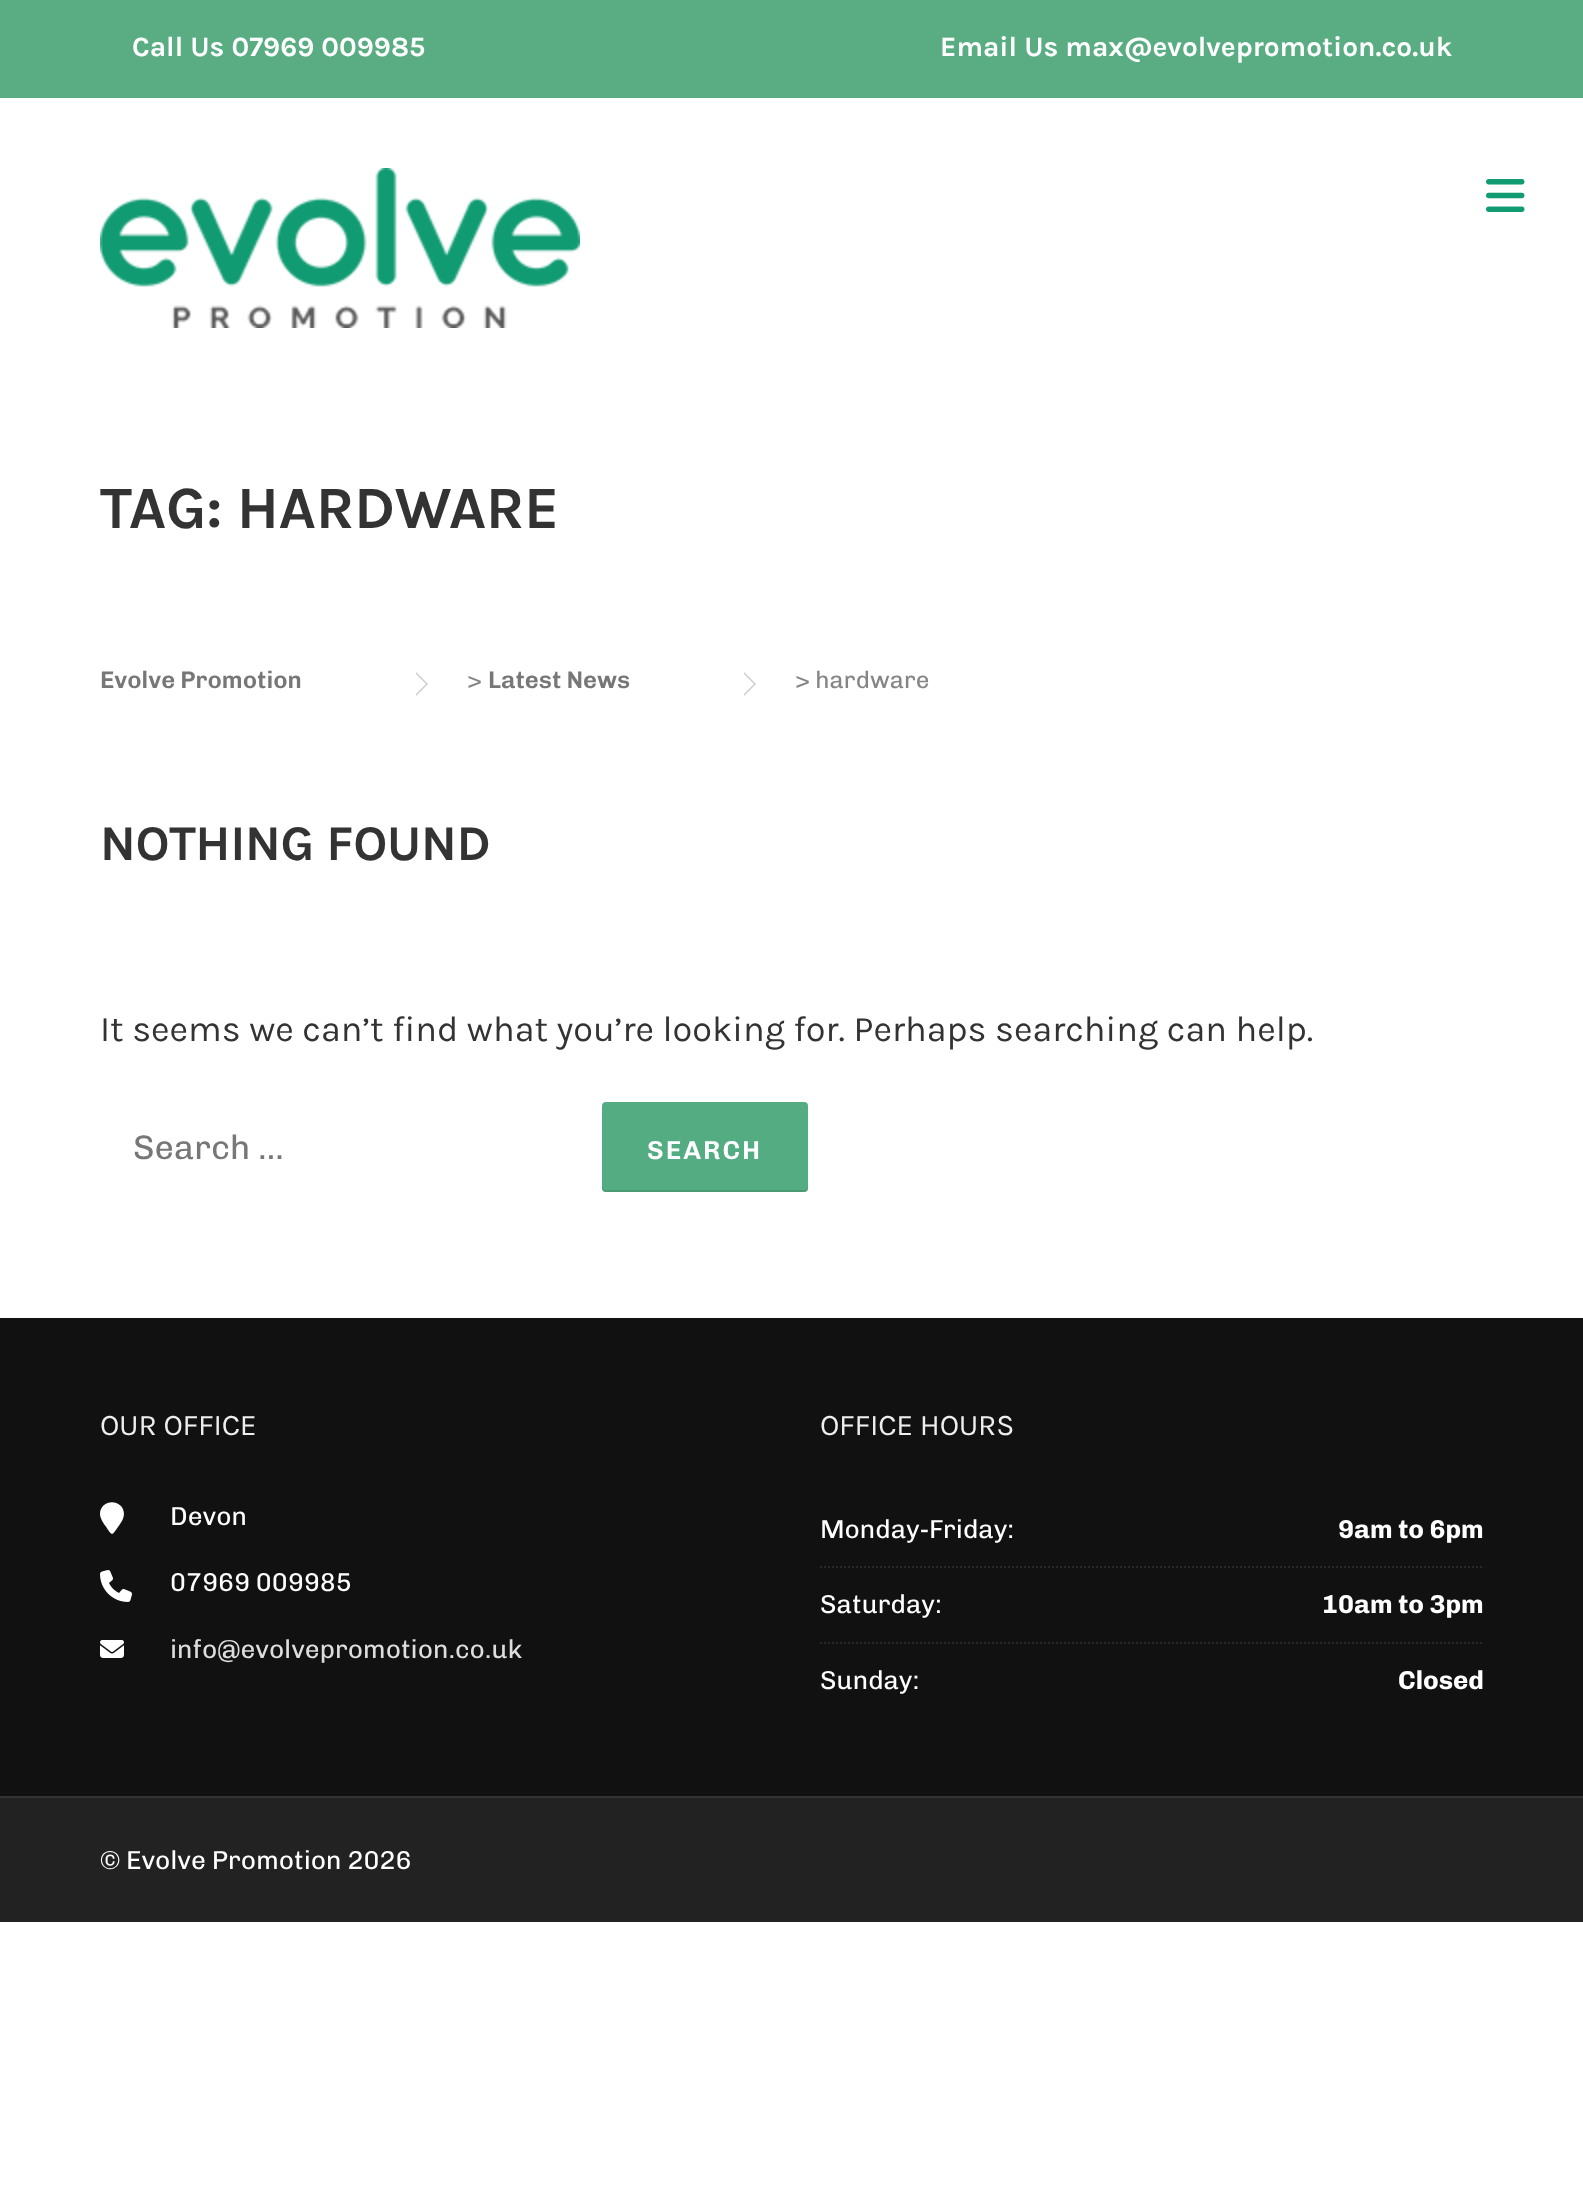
<?xml version="1.0" encoding="UTF-8"?>
<svg xmlns="http://www.w3.org/2000/svg" width="1583" height="2208">
    <rect width="100%" height="100%" fill="#FFFFFF"/>
    <rect x="0" y="0" width="1583" height="98" fill="#5AAD83"/>
    <text x="132" y="56" font-family="Karla" font-size="28" font-weight="700" fill="#FFFFFF">Call Us 07969 009985</text>
    <text x="940" y="56" font-family="Karla" font-size="28" font-weight="700" fill="#FFFFFF">Email Us max@evolvepromotion.co.uk</text>
    <image x="100" y="168" width="480" height="160" href="img_01.png"/>
    <image x="1486" y="179" width="39" height="33" href="img_02.png"/>
    <text x="100" y="528" font-family="Karla" font-size="60" font-weight="700" letter-spacing="-0.4" fill="#333333">TAG: HARDWARE</text>
    <text x="100" y="688" font-family="Chivo" font-size="24" font-weight="600" fill="#777777">Evolve Promotion</text>
    <path d="M 416 696 V 672 L 428 684 Z" fill="#CCCCCC"/>
    <path d="M 416 694 V 674 L 426 684 Z" fill="#FFFFFF"/>
    <text x="467" y="688" font-family="Chivo" font-size="24" fill="#858585">&gt;</text>
    <text x="488" y="688" font-family="Chivo" font-size="24" font-weight="600" fill="#777777">Latest News</text>
    <path d="M 744 696 V 672 L 756 684 Z" fill="#CCCCCC"/>
    <path d="M 744 694 V 674 L 754 684 Z" fill="#FFFFFF"/>
    <text x="795" y="688" font-family="Chivo" font-size="24" fill="#858585">&gt; hardware</text>
    <text x="100" y="860" font-family="Karla" font-size="50" font-weight="700" letter-spacing="-0.4" fill="#333333">NOTHING FOUND</text>
    <text x="100" y="1041" font-family="Karla" font-size="36" fill="#333333">It seems we can’t find what you’re looking for. Perhaps searching can help.</text>
    <text x="133" y="1159" font-family="Chivo" font-size="34" fill="#777777">Search …</text>
    <rect x="602" y="1102" width="206" height="90" rx="4" fill="#54AC82"/>
    <path d="M 602 1186 C 602 1189 602 1191 605 1192 H 804 C 808 1192 808 1189 808 1186 C 808 1188 806 1190 804 1190 H 606 C 604 1190 602 1188 602 1186 Z" fill="#000000" fill-opacity="0.1"/>
    <text x="647" y="1159" font-family="Chivo" font-size="26" font-weight="600" letter-spacing="2" fill="#FFFFFF">SEARCH</text>
    <rect x="0" y="1318" width="1583" height="478" fill="#111111"/>
    <text x="100" y="1435" font-family="Karla" font-size="30" letter-spacing="-0.25" fill="#EEEEEE">OUR OFFICE</text>
    <path d="M 124 1514 C 124 1518.5 121 1523 118 1527 C 112 1535.5 112.5 1536.5 106.5 1527.5 C 104 1524 100 1518.5 100 1514 C 100 1498.5 123.5 1498 124 1514 Z" fill="#FFFFFF"/>
    <text x="170" y="1525" font-family="Chivo" font-size="26" fill="#FFFFFF">Devon</text>
    <image x="100" y="1570" width="32" height="32" href="img_03.png"/>
    <text x="170" y="1591" font-family="Chivo" font-size="26" fill="#FFFFFF">07969 009985</text>
    <image x="100" y="1640" width="24" height="18" href="img_04.png"/>
    <text x="170" y="1658" font-family="Chivo" font-size="26" fill="#DDDDDD">info@evolvepromotion.co.uk</text>
    <text x="820" y="1435" font-family="Karla" font-size="30" letter-spacing="-0.25" fill="#EEEEEE">OFFICE HOURS</text>
    <text x="820" y="1538" font-family="Chivo" font-size="26" fill="#FFFFFF">Monday-Friday:</text>
    <text x="1338" y="1538" font-family="Chivo" font-size="26" font-weight="700" fill="#FFFFFF">9am to 6pm</text>
    <path d="M 820 1567 H 1484" fill="none" stroke="#292929" stroke-width="2" stroke-dasharray="2 2"/>
    <text x="820" y="1613" font-family="Chivo" font-size="26" fill="#FFFFFF">Saturday:</text>
    <text x="1322" y="1613" font-family="Chivo" font-size="26" font-weight="700" fill="#FFFFFF">10am to 3pm</text>
    <path d="M 820 1643 H 1484" fill="none" stroke="#292929" stroke-width="2" stroke-dasharray="2 2"/>
    <text x="820" y="1689" font-family="Chivo" font-size="26" fill="#FFFFFF">Sunday:</text>
    <text x="1398" y="1689" font-family="Chivo" font-size="26" font-weight="700" fill="#FFFFFF">Closed</text>
    <rect x="0" y="1798" width="1583" height="124" fill="#222222"/>
    <rect x="0" y="1796" width="1583" height="2" fill="#333333"/>
    <text x="100" y="1869" font-family="Chivo" font-size="26" fill="#FFFFFF">© Evolve Promotion 2026</text>
</svg>
